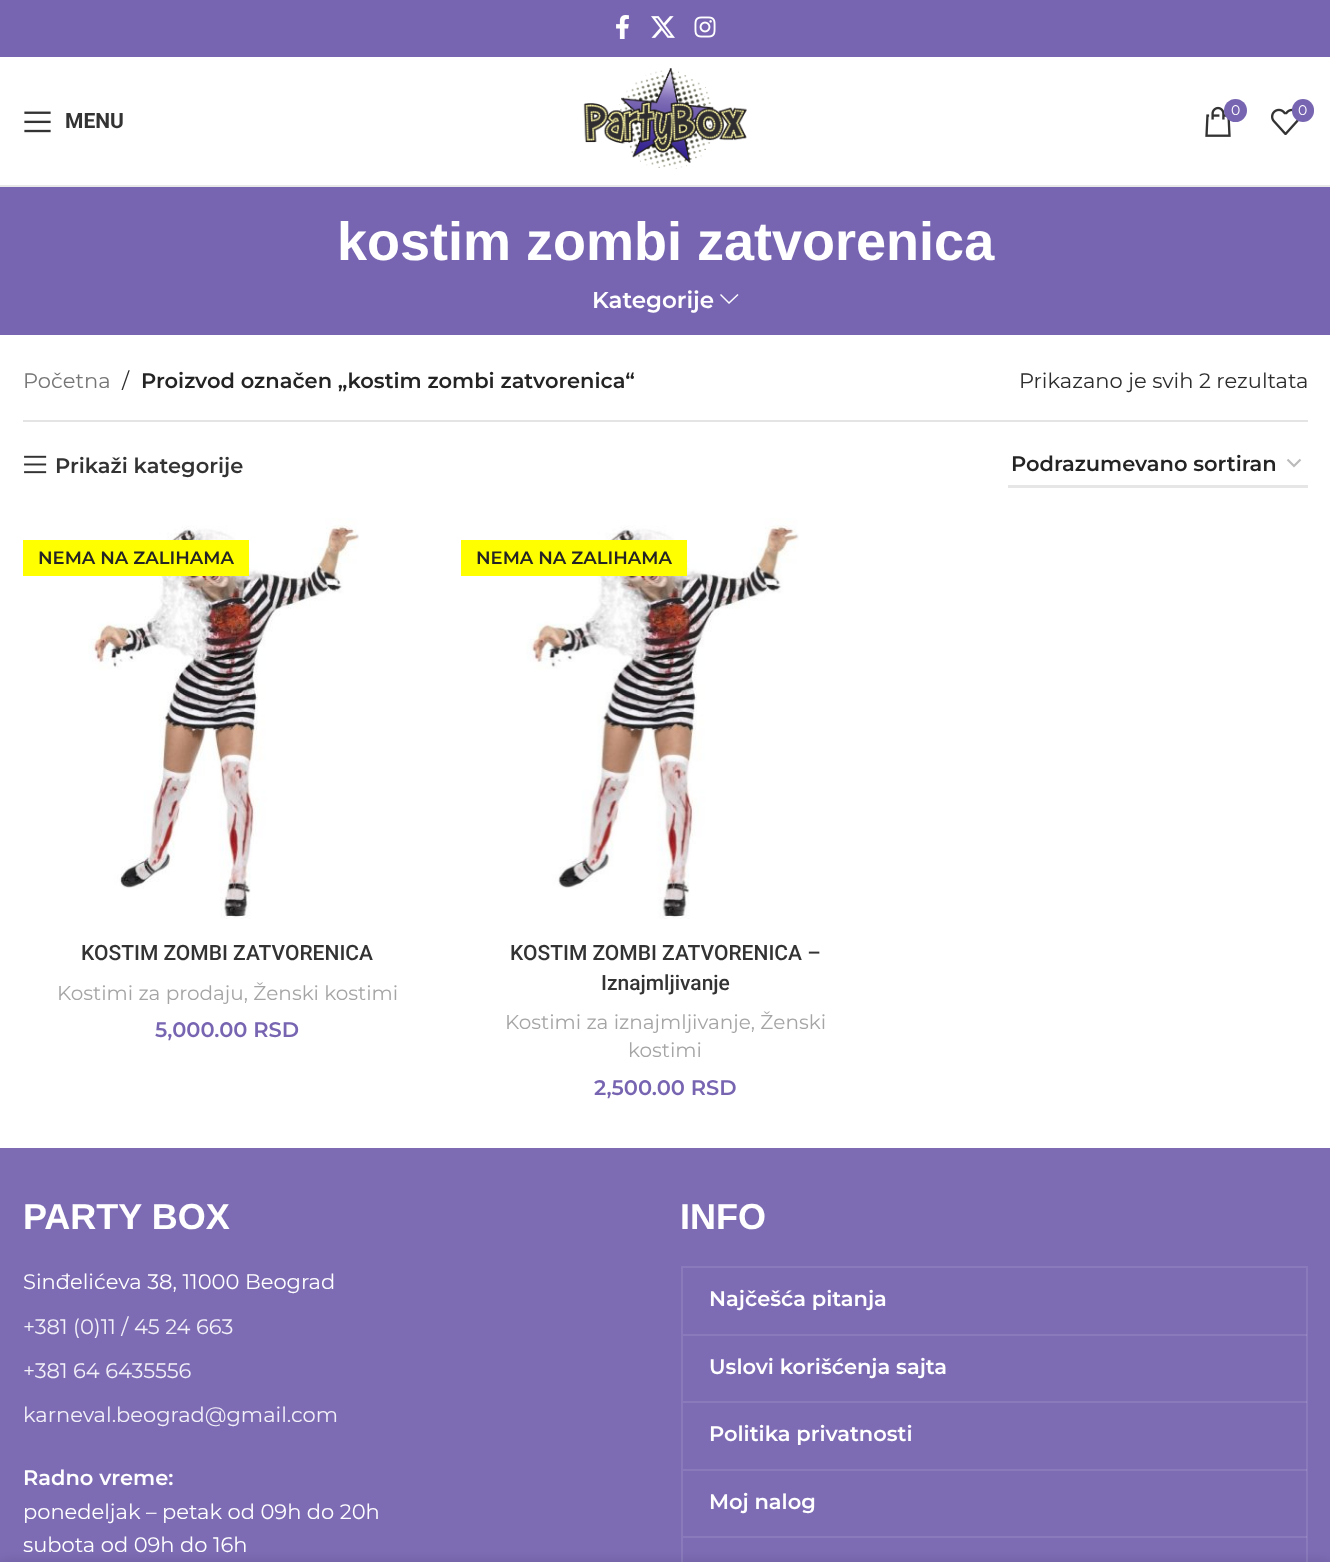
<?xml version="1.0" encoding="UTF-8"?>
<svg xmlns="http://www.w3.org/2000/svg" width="1330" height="1562">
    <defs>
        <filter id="blur1" x="-50%" y="-200%" width="200%" height="500%"><feGaussianBlur stdDeviation="7"/></filter>
    </defs>
    <rect width="100%" height="100%" fill="#FFFFFF"/>
    <rect x="0" y="0" width="1330" height="57" fill="#7865B2"/>
    <image x="616" y="15" width="13" height="24" href="img_01.png"/>
    <image x="651" y="16" width="24" height="22" href="img_02.png"/>
    <image x="694" y="16" width="22" height="22" href="img_03.png"/>
    <rect x="0" y="185" width="1330" height="2" fill="#E8E8E8"/>
    <image x="583" y="68" width="164" height="101" href="img_04.png"/>
    <image x="1205" y="106" width="26" height="31" href="img_05.png"/>
    <circle cx="1235.5" cy="110.5" r="11.5" fill="#7865B2"/>
    <text x="1231" y="115" font-family="Montserrat" font-size="14" fill="#FFFFFF">0</text>
    <image x="1271" y="108" width="28" height="27" href="img_06.png"/>
    <rect x="1292" y="99" width="22" height="23" rx="11" fill="#7865B2"/>
    <text x="1298" y="115" font-family="Montserrat" font-size="14" fill="#FFFFFF">0</text>
    <image x="24" y="111" width="27" height="22" href="img_07.png"/>
    <text x="65" y="128" font-family="Roboto" font-size="21" font-weight="700" fill="#333333">MENU</text>
    <rect x="0" y="187" width="1330" height="148" fill="#7865B2"/>
    <text x="337" y="260" font-family="Liberation Sans" font-size="54" font-weight="700" fill="#FFFFFF">kostim zombi zatvorenica</text>
    <text x="592" y="308" font-family="Montserrat" font-size="23" font-weight="600" fill="#FFFFFF">Kategorije</text>
    <path d="M 737.5 294 L 729 302 L 721 294 L 720 295 L 729 304 L 738.5 295 Z" fill="#FFFFFF"/>
    <rect x="23" y="420" width="1285" height="2" fill="#E4E4E4"/>
    <text x="23" y="388" font-family="Montserrat" font-size="21" fill="#767676">Početna</text>
    <text x="122" y="388" font-family="Montserrat" font-size="21" fill="#2D2D2D">/</text>
    <text x="141" y="388" font-family="Montserrat" font-size="21" font-weight="600" fill="#242424">Proizvod označen „kostim zombi zatvorenica“</text>
    <text x="1019" y="388" font-family="Montserrat" font-size="21" fill="#2D2D2D">Prikazano je svih 2 rezultata</text>
    <image x="24" y="455" width="23" height="19" href="img_08.png"/>
    <text x="55" y="473" font-family="Montserrat" font-size="21" font-weight="600" fill="#333333">Prikaži kategorije</text>
    <path d="M 1287.5 459.5 L 1294 466 L 1300.5 459.5" fill="none" stroke="#BBBBBB" stroke-width="2.2"/>
    <rect x="1008" y="485" width="300" height="3" fill="#E6E6E6"/>
    <text x="1011" y="471" font-family="Montserrat" font-size="21" font-weight="600" fill="#242424">Podrazumevano sortiran</text>
    <image x="88" y="518" width="271" height="401" href="img_09.png"/>
    <rect x="23" y="540" width="226" height="36" fill="#FFFF00"/>
    <text x="38" y="564" font-family="Montserrat" font-size="18" font-weight="600" fill="#242424">NEMA NA ZALIHAMA</text>
    <text x="81" y="960" font-family="Roboto" font-size="21" font-weight="500" fill="#333333">KOSTIM ZOMBI ZATVORENICA</text>
    <text x="57" y="1000" font-family="Montserrat" font-size="20" fill="#A5A5A5">Kostimi za prodaju, Ženski kostimi</text>
    <text x="155" y="1037" font-family="Montserrat" font-size="21" font-weight="600" fill="#7865B2">5,000.00 RSD</text>
    <image x="526" y="518" width="273" height="401" href="img_10.png"/>
    <rect x="461" y="540" width="226" height="36" fill="#FFFF00"/>
    <text x="476" y="564" font-family="Montserrat" font-size="18" font-weight="600" fill="#242424">NEMA NA ZALIHAMA</text>
    <text x="510" y="960" font-family="Roboto" font-size="21" font-weight="500" fill="#333333">KOSTIM ZOMBI ZATVORENICA –</text>
    <text x="601" y="990" font-family="Roboto" font-size="21" font-weight="500" fill="#333333">Iznajmljivanje</text>
    <text x="505" y="1029" font-family="Montserrat" font-size="20" fill="#A5A5A5">Kostimi za iznajmljivanje, Ženski</text>
    <text x="628" y="1057" font-family="Montserrat" font-size="20" fill="#A5A5A5">kostimi</text>
    <text x="594" y="1095" font-family="Montserrat" font-size="21" font-weight="600" fill="#7865B2">2,500.00 RSD</text>
    <rect x="0" y="1148" width="1330" height="414" fill="#7D6BB4"/>
    <text x="23" y="1229" font-family="Liberation Sans" font-size="36" font-weight="700" fill="#FFFFFF">PARTY BOX</text>
    <text x="23" y="1289" font-family="Montserrat" font-size="21" fill="#FFFFFF">Sinđelićeva 38, 11000 Beograd</text>
    <text x="23" y="1334" font-family="Montserrat" font-size="21" fill="#F2F0F8">+381 (0)11 / 45 24 663</text>
    <text x="23" y="1378" font-family="Montserrat" font-size="21" fill="#F2F0F8">+381 64 6435556</text>
    <text x="23" y="1422" font-family="Montserrat" font-size="21" fill="#F2F0F8">karneval.beograd@gmail.com</text>
    <text x="23" y="1485" font-family="Montserrat" font-size="21" font-weight="600" fill="#FFFFFF">Radno vreme:</text>
    <text font-family="Montserrat" font-size="21" fill="#FFFFFF">
        <tspan x="23" y="1519">ponedeljak – petak od 09h do 20h</tspan>
        <tspan x="23" y="1552">subota od 09h do 16h</tspan>
    </text>
    <text x="680" y="1229" font-family="Liberation Sans" font-size="36" font-weight="700" fill="#FFFFFF">INFO</text>
    <rect x="682" y="1267" width="625" height="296" fill="none" stroke="#8A7ABC" stroke-width="2"/>
    <rect x="683" y="1334" width="624" height="2" fill="#FFFFFF" fill-opacity="0.1"/>
    <text x="709" y="1306" font-family="Montserrat" font-size="21" font-weight="600" fill="#FFFFFF">Najčešća pitanja</text>
    <rect x="683" y="1401" width="624" height="2" fill="#FFFFFF" fill-opacity="0.1"/>
    <text x="709" y="1374" font-family="Montserrat" font-size="21" font-weight="600" fill="#FFFFFF">Uslovi korišćenja sajta</text>
    <rect x="683" y="1469" width="624" height="2" fill="#FFFFFF" fill-opacity="0.1"/>
    <text x="709" y="1441" font-family="Montserrat" font-size="21" font-weight="600" fill="#FFFFFF">Politika privatnosti</text>
    <rect x="683" y="1536" width="624" height="2" fill="#FFFFFF" fill-opacity="0.1"/>
    <text x="709" y="1509" font-family="Montserrat" font-size="21" font-weight="600" fill="#FFFFFF">Moj nalog</text>
    <rect x="0" y="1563" width="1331" height="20" fill="#000000" fill-opacity="0.14" filter="url(#blur1)"/>
</svg>
